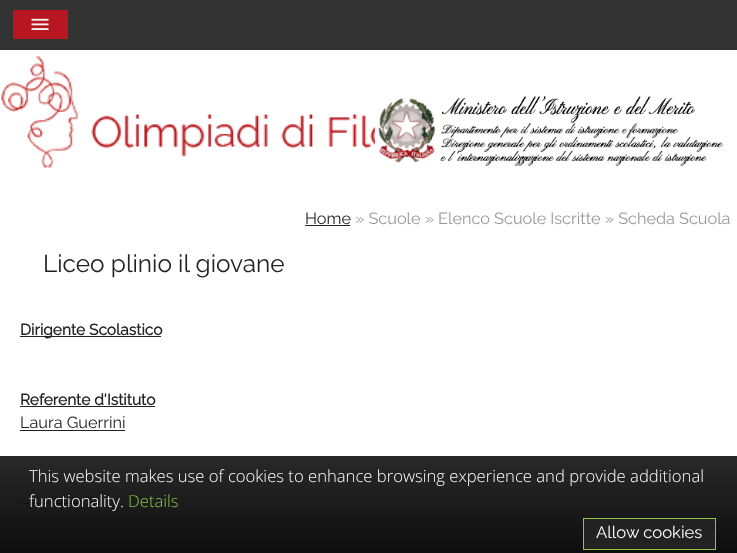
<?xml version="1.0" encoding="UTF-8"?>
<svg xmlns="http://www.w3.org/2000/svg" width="737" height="553">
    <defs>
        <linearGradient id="g1" gradientUnits="userSpaceOnUse" x1="373" y1="456" x2="373" y2="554"><stop offset="0" stop-color="#1E1E1E" stop-opacity="0.95"/><stop offset="1" stop-color="#000000" stop-opacity="0.95"/></linearGradient>
    </defs>
    <rect width="100%" height="100%" fill="#FFFFFF"/>
    <rect x="0" y="0" width="737" height="50" fill="#333333"/>
    <rect x="13" y="10" width="55" height="29" fill="#B81721"/>
    <image x="31" y="18" width="18" height="12" href="img_01.png"/>
    <image x="1" y="56" width="374" height="112" href="img_02.png"/>
    <image x="375" y="96" width="349" height="71" href="img_03.png"/>
    <text x="305" y="224" font-family="Raleway" font-size="16.25" font-weight="100" fill="#222222">Home</text>
    <rect x="305" y="225" width="45" height="1" fill="#222222"/>
    <text x="355" y="224" font-family="Raleway" font-size="16.25" font-weight="100" fill="#999999">» Scuole » Elenco Scuole Iscritte » Scheda Scuola</text>
    <text x="43" y="272" font-family="Raleway" font-size="24.4" font-weight="100" fill="#222222">Liceo plinio il giovane</text>
    <rect x="20" y="336" width="141" height="1" fill="#222222"/>
    <text x="20" y="335" font-family="Raleway" font-size="15.5" font-weight="700" fill="#222222">Dirigente Scolastico</text>
    <text x="20" y="405" font-family="Raleway" font-size="15.5" font-weight="700" fill="#222222">Referente d'Istituto</text>
    <rect x="20" y="406" width="135" height="1" fill="#222222"/>
    <text x="20" y="428" font-family="Raleway" font-size="16.25" font-weight="100" fill="#222222">Laura Guerrini</text>
    <rect x="20" y="430" width="105" height="1" fill="#222222"/>
    <rect x="20" y="503" width="60" height="1" fill="#222222"/>
    <rect x="0" y="456" width="737" height="97" fill="url(#g1)"/>
    <text font-family="Open Sans" font-size="16.65" font-weight="300" fill="#FFFFFF">
        <tspan x="29" y="482">This website makes use of cookies to enhance browsing experience and provide additional</tspan>
        <tspan x="29" y="507">functionality.</tspan>
    </text>
    <text x="128" y="507" font-family="Open Sans" font-size="16.65" font-weight="300" fill="#8DC63F">Details</text>
    <rect x="583.5" y="518.5" width="132" height="31" fill="#222222" stroke="#8DC63F"/>
    <text x="596" y="538" font-family="Raleway" font-size="16.65" font-weight="100" fill="#FFFFFF">Allow cookies</text>
</svg>
